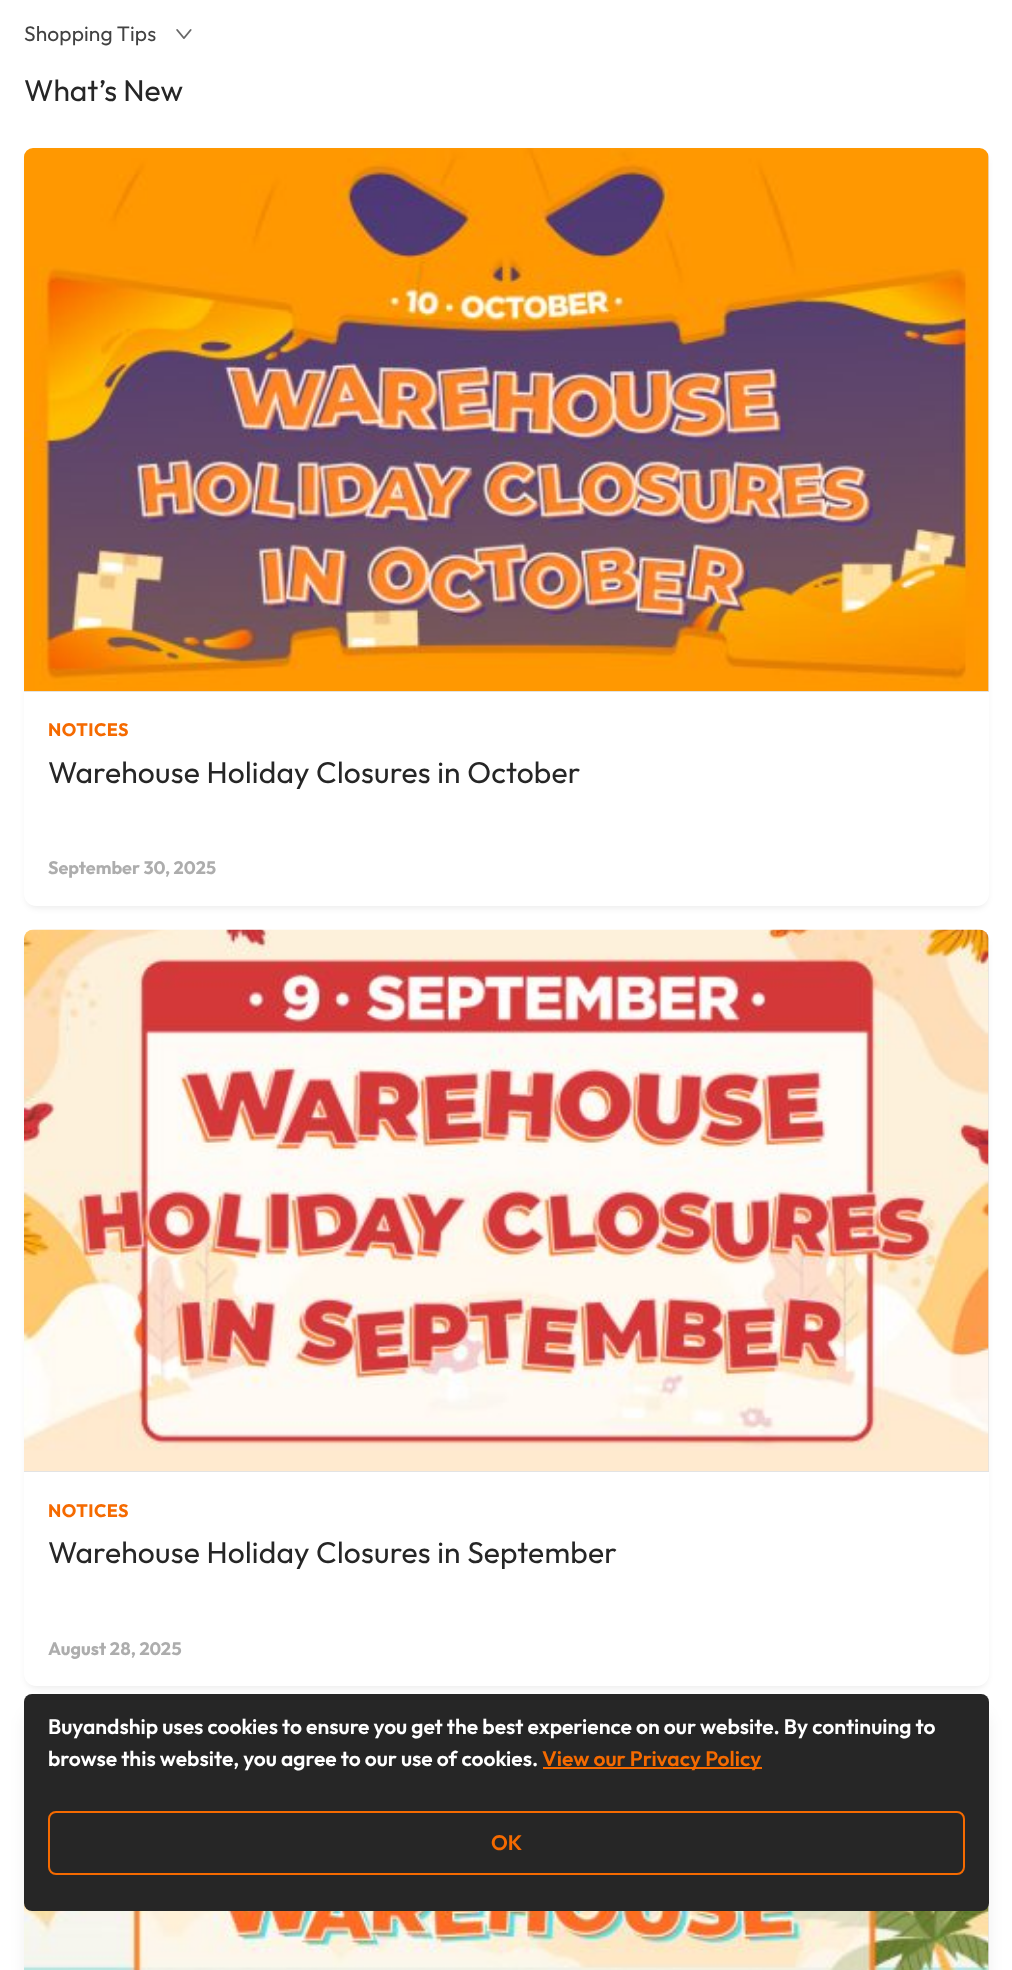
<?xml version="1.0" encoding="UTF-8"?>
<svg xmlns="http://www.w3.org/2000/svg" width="1012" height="1970">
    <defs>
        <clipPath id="clip1"><path d="M 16 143 H 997 V 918 H 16 Z M 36 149 H 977 C 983.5 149 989 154.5 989 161 V 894 C 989 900.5 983.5 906 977 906 H 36 C 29.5 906 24 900.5 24 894 V 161 C 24 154.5 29.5 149 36 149 Z" clip-rule="evenodd"/></clipPath>
        <filter id="blur1" x="-50%" y="-200%" width="200%" height="500%"><feGaussianBlur stdDeviation="3"/></filter>
        <clipPath id="clip2"><path d="M 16 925 H 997 V 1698 H 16 Z M 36 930 H 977 C 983.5 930 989 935.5 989 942 V 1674 C 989 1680.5 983.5 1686 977 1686 H 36 C 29.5 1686 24 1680.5 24 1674 V 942 C 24 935.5 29.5 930 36 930 Z" clip-rule="evenodd"/></clipPath>
        <filter id="blur2" x="-50%" y="-200%" width="200%" height="500%"><feGaussianBlur stdDeviation="7.5"/></filter>
    </defs>
    <rect width="100%" height="100%" fill="#FFFFFF"/>
    <text x="24" y="41" font-family="Outfit" font-size="21" letter-spacing="0.1" fill="#424242">Shopping Tips</text>
    <image x="176" y="29" width="16" height="10" href="img_01.png"/>
    <text x="24" y="101" font-family="Outfit" font-size="30" fill="#262626">What’s New</text>
    <g clip-path="url(#clip1)">
        <rect x="26" y="153" width="961" height="755" rx="11" fill="#000000" fill-opacity="0.08" filter="url(#blur1)"/>
    </g>
    <path d="M 33 149 H 980 C 985 149 989 153 989 158 V 692 H 24 V 158 C 24 153 28 149 33 149 Z" fill="#E3E3E3"/>
    <image x="24" y="148" width="965" height="543" href="img_02.png"/>
    <text x="48" y="736" font-family="Outfit" font-size="18" font-weight="700" letter-spacing="0.5" fill="#F56A00">NOTICES</text>
    <text x="48" y="783" font-family="Outfit" font-size="30" letter-spacing="0.2" fill="#262626">Warehouse Holiday Closures in October</text>
    <text x="48" y="874" font-family="Outfit" font-size="18" font-weight="700" fill="#ADADAD">September 30, 2025</text>
    <g clip-path="url(#clip2)">
        <rect x="26" y="935" width="961" height="753" rx="11" fill="#000000" fill-opacity="0.08" filter="url(#blur1)"/>
    </g>
    <path d="M 33 930 H 980 C 985 930 989 934 989 939 V 1472 H 24 V 939 C 24 934 28 930 33 930 Z" fill="#E3E3E3"/>
    <image x="24" y="929" width="965" height="542" href="img_03.png"/>
    <text x="48" y="1517" font-family="Outfit" font-size="18" font-weight="700" letter-spacing="0.5" fill="#F56A00">NOTICES</text>
    <text x="48" y="1563" font-family="Outfit" font-size="30" letter-spacing="0.2" fill="#262626">Warehouse Holiday Closures in September</text>
    <text x="48" y="1655" font-family="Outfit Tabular" font-size="18" font-weight="700" fill="#ADADAD">August 28, 2025</text>
    <rect x="24" y="1712" width="965" height="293" rx="12" fill="#000000" fill-opacity="0.06" filter="url(#blur2)"/>
    <rect x="988" y="1903" width="1" height="67" fill="#E3E3E3"/>
    <image x="24" y="1903" width="965" height="67" href="img_04.png"/>
    <rect x="24" y="1694" width="965" height="217" rx="8" fill="#262626"/>
    <text font-family="Outfit" font-size="21" font-weight="600" fill="#FFFFFF">
        <tspan x="48" y="1734">Buyandship uses cookies to ensure you get the best experience on our website. By continuing to</tspan>
        <tspan x="48" y="1766">browse this website, you agree to our use of cookies.</tspan>
    </text>
    <rect x="543" y="1767" width="219" height="2" fill="#F56A00"/>
    <text x="542" y="1766" font-family="Outfit" font-size="21" font-weight="600" fill="#F56A00">View our Privacy Policy</text>
    <rect x="49" y="1812" width="915" height="62" rx="7" fill="none" stroke="#F56A00" stroke-width="2"/>
    <text x="491" y="1850" font-family="Outfit" font-size="21" font-weight="600" fill="#F56A00">OK</text>
</svg>
